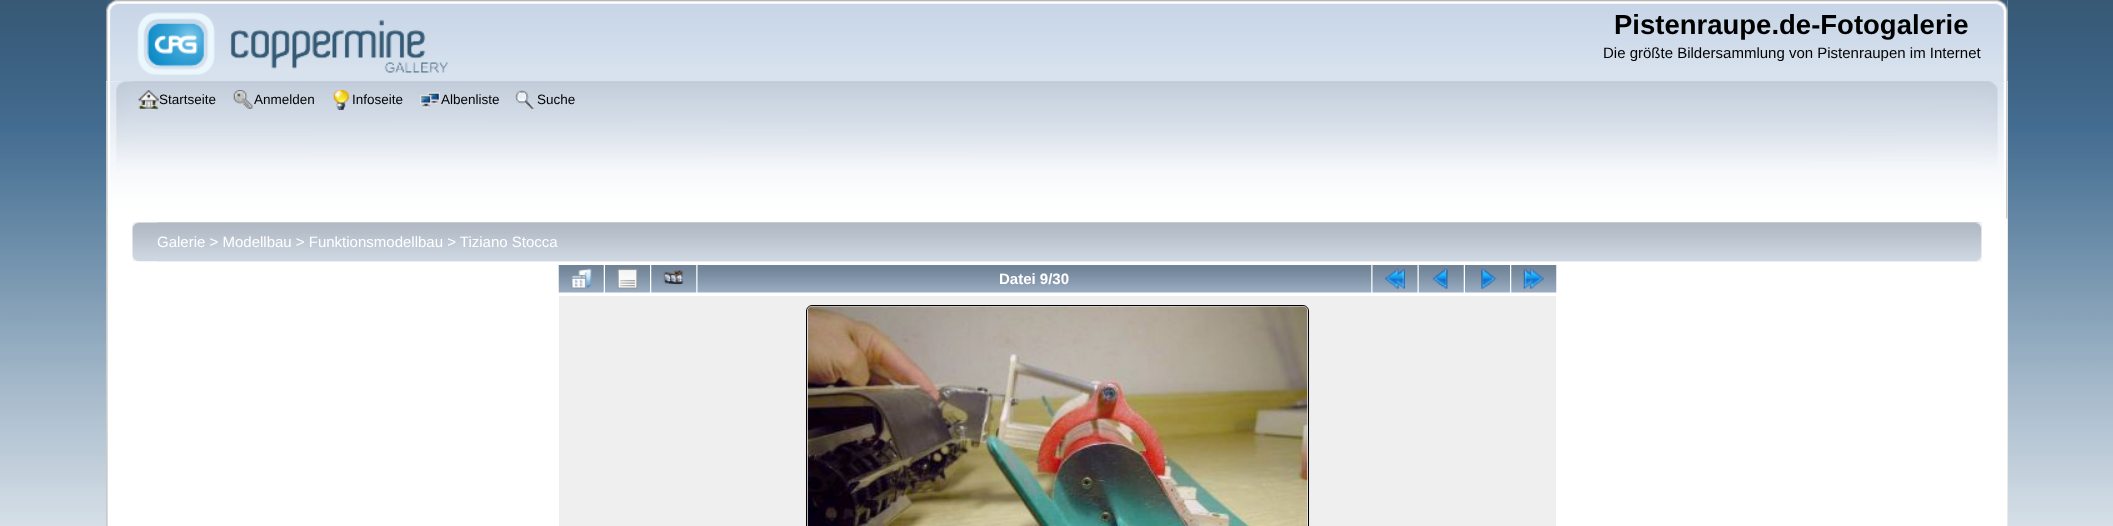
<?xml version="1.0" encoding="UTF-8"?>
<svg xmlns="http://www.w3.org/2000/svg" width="2113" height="526">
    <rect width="100%" height="100%" fill="#FFFFFF"/>
    <image x="0" y="0" width="2113" height="526" href="img_01.png"/>
    <image x="106" y="0" width="1902" height="81" href="img_02.png"/>
    <image x="131" y="0" width="1877" height="81" href="img_03.png"/>
    <image x="137" y="12" width="311" height="63" href="img_04.png"/>
    <text x="1614" y="34" font-family="Liberation Sans" font-size="27.5" font-weight="700" fill="#000000">Pistenraupe.de-Fotogalerie</text>
    <text x="1603" y="58" font-family="Liberation Sans" font-size="15" fill="#000000">Die größte Bildersammlung von Pistenraupen im Internet</text>
    <rect x="106" y="81" width="1902" height="138" fill="#FEFEFE"/>
    <image x="106" y="81" width="1902" height="138" href="img_05.png"/>
    <image x="131" y="81" width="1877" height="138" href="img_06.png"/>
    <image x="138" y="90" width="21" height="20" href="img_07.png"/>
    <text x="159" y="104" font-family="Liberation Sans" font-size="13.5" fill="#000000">Startseite</text>
    <image x="233" y="90" width="20" height="19" href="img_08.png"/>
    <text x="254" y="104" font-family="Liberation Sans" font-size="13.5" fill="#000000">Anmelden</text>
    <image x="333" y="90" width="16" height="20" href="img_09.png"/>
    <text x="352" y="104" font-family="Liberation Sans" font-size="13.5" fill="#000000">Infoseite</text>
    <image x="420" y="92" width="20" height="16" href="img_10.png"/>
    <text x="441" y="104" font-family="Liberation Sans" font-size="13.5" fill="#000000">Albenliste</text>
    <image x="515" y="90" width="20" height="19" href="img_11.png"/>
    <text x="537" y="104" font-family="Liberation Sans" font-size="13.5" fill="#000000">Suche</text>
    <rect x="106" y="219" width="1902" height="307" fill="#FFFFFF"/>
    <image x="106" y="218" width="1901" height="308" href="img_12.png"/>
    <image x="2006" y="218" width="2" height="308" href="img_13.png"/>
    <image x="132" y="222" width="1850" height="40" href="img_14.png"/>
    <image x="157" y="222" width="1825" height="40" href="img_15.png"/>
    <text x="157" y="247" font-family="Liberation Sans" font-size="15" fill="#FFFFFF">Galerie &gt; Modellbau &gt; Funktionsmodellbau &gt; Tiziano Stocca</text>
    <image x="558" y="265" width="46" height="28" href="img_16.png"/>
    <image x="571" y="268" width="21" height="21" href="img_17.png"/>
    <image x="605" y="265" width="45" height="28" href="img_18.png"/>
    <image x="617" y="268" width="21" height="21" href="img_19.png"/>
    <image x="651" y="265" width="46" height="28" href="img_20.png"/>
    <image x="663" y="270" width="21" height="15" href="img_21.png"/>
    <image x="697" y="265" width="675" height="28" href="img_22.png"/>
    <text x="999" y="284" font-family="Liberation Sans" font-size="15" font-weight="700" fill="#FFFFFF">Datei 9/30</text>
    <image x="1372" y="265" width="46" height="28" href="img_23.png"/>
    <image x="1385" y="268" width="20" height="21" href="img_24.png"/>
    <image x="1418" y="265" width="46" height="28" href="img_16.png"/>
    <image x="1432" y="268" width="16" height="21" href="img_25.png"/>
    <image x="1465" y="265" width="45" height="28" href="img_18.png"/>
    <image x="1481" y="268" width="16" height="21" href="img_26.png"/>
    <image x="1511" y="265" width="46" height="28" href="img_20.png"/>
    <image x="1523" y="268" width="21" height="21" href="img_27.png"/>
    <rect x="559" y="296" width="997" height="230" fill="#EFEFEF"/>
    <rect x="806.5" y="305.5" width="502" height="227" rx="5.5" fill="none" stroke="#000000"/>
    <image x="807" y="306" width="501" height="220" href="img_28.png"/>
</svg>
